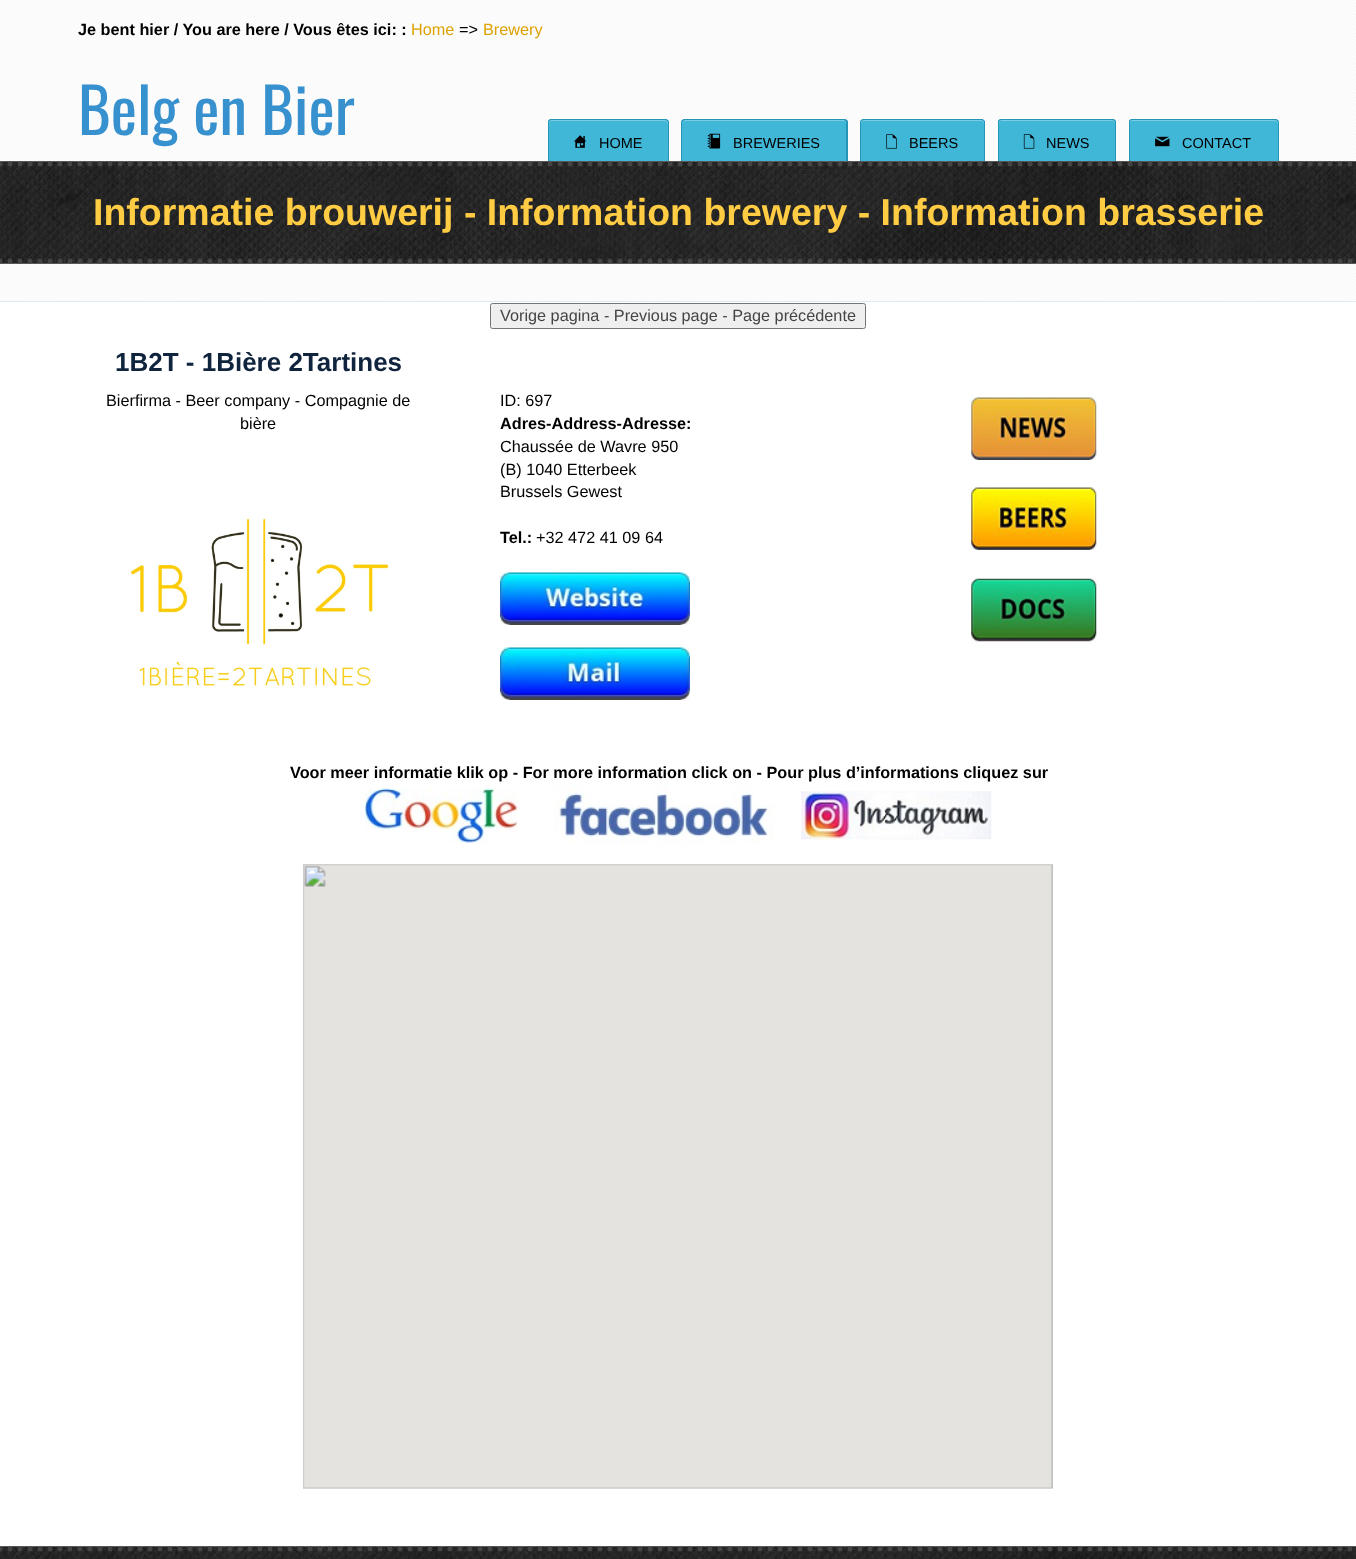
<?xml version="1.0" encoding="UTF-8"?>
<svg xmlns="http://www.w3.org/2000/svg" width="1356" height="1559">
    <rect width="100%" height="100%" fill="#FFFFFF"/>
    <image x="0" y="0" width="1356" height="161" href="img_01.png"/>
    <text x="78" y="35" font-family="Liberation Sans" font-size="16.25" font-weight="700" fill="#000000">Je bent hier / You are here / Vous êtes ici: :</text>
    <text x="411" y="35" font-family="Liberation Sans" font-size="16.25" fill="#DDA100">Home</text>
    <text x="459" y="35" font-family="Liberation Sans" font-size="16.25" fill="#000000">=&gt;</text>
    <text x="483" y="35" font-family="Liberation Sans" font-size="16.25" fill="#DDA100">Brewery</text>
    <text x="78" y="135" font-family="Oswald" font-size="62.5" fill="#3891CF">Belg en Bier</text>
    <path d="M 552 119 H 665 C 667 119 669 121 669 123 V 161 H 548 V 123 C 548 121 550 119 552 119 Z" fill="#41B7D8"/>
    <path d="M 551 121 H 665 C 666 121 668 122 668 124 V 122 C 668 121 667 120 666 120 H 552 C 550 120 549 121 549 122 V 124 C 549 122 550 121 551 121 Z" fill="#7ACDE4"/>
    <path d="M 551 119 H 665 C 667 119 669 120 669 122 V 161 H 548 V 122 C 548 120 549 119 551 119 Z M 551 120 H 665 C 666 120 668 121 668 122 V 161 H 549 V 122 C 549 121 550 120 551 120 Z" fill="#2495B4" fill-rule="evenodd"/>
    <image x="574" y="135" width="13" height="13" href="img_02.png"/>
    <text x="599" y="148" font-family="Liberation Sans" font-size="14.5" fill="#000000">HOME</text>
    <path d="M 685 119 H 844 C 846 119 848 121 848 123 V 161 H 681 V 123 C 681 121 683 119 685 119 Z" fill="#41B7D8"/>
    <path d="M 685 121 H 844 C 845 121 846 122 846 124 V 122 L 844 120 H 686 C 684 120 683 121 683 122 Z" fill="#7ACDE4"/>
    <path d="M 685 119 H 844 C 846 119 848 120 848 122 V 161 H 681 V 122 C 681 120 683 119 685 119 Z M 685 120 H 844 C 845 120 846 121 846 122 V 161 H 682 V 122 C 682 121 684 120 685 120 Z" fill="#2495B4" fill-rule="evenodd"/>
    <image x="707" y="133" width="14" height="16" href="img_03.png"/>
    <text x="733" y="148" font-family="Liberation Sans" font-size="14.5" fill="#000000">BREWERIES</text>
    <path d="M 864 119 H 981 C 983 119 985 121 985 123 V 161 H 860 V 123 C 860 121 862 119 864 119 Z" fill="#41B7D8"/>
    <path d="M 864 121 H 981 C 983 121 984 122 984 124 V 122 C 984 121 983 120 982 120 H 864 C 862 120 861 121 861 122 V 124 C 861 122 862 121 864 121 Z" fill="#7ACDE4"/>
    <path d="M 864 119 H 981 C 983 119 985 120 985 122 V 161 H 860 V 122 C 860 120 862 119 864 119 Z M 864 120 H 981 C 983 120 984 121 984 122 V 161 H 861 V 122 C 861 121 862 120 864 120 Z" fill="#2495B4" fill-rule="evenodd"/>
    <image x="886" y="134" width="11" height="15" href="img_04.png"/>
    <text x="909" y="148" font-family="Liberation Sans" font-size="14.5" fill="#000000">BEERS</text>
    <path d="M 1002 119 H 1112 C 1114 119 1116 121 1116 123 V 161 H 998 V 123 C 998 121 1000 119 1002 119 Z" fill="#41B7D8"/>
    <path d="M 1001 121 H 1112 C 1114 121 1115 122 1115 124 V 122 C 1115 121 1114 120 1112 120 H 1002 C 1000 120 999 121 999 122 V 124 C 999 122 1000 121 1001 121 Z" fill="#7ACDE4"/>
    <path d="M 1001 119 H 1112 C 1115 119 1116 120 1116 122 V 161 H 998 V 122 C 998 120 999 119 1001 119 Z M 1001 120 H 1112 C 1114 120 1115 121 1115 122 V 161 H 999 V 122 C 999 121 1000 120 1001 120 Z" fill="#2495B4" fill-rule="evenodd"/>
    <image x="1023" y="134" width="12" height="15" href="img_05.png"/>
    <text x="1046" y="148" font-family="Liberation Sans" font-size="14.5" fill="#000000">NEWS</text>
    <path d="M 1133 119 H 1275 C 1277 119 1279 121 1279 123 V 161 H 1129 V 123 C 1129 121 1131 119 1133 119 Z" fill="#41B7D8"/>
    <path d="M 1132 121 H 1275 C 1276 121 1278 122 1278 124 C 1278 122 1278 120 1276 120 H 1132 C 1130 120 1130 122 1130 124 C 1130 122 1131 121 1132 121 Z" fill="#7ACDE4"/>
    <path d="M 1132 119 H 1275 C 1277 119 1279 120 1279 122 V 161 H 1129 V 122 C 1129 120 1130 119 1132 119 Z M 1132 120 H 1275 C 1276 120 1278 121 1278 122 V 161 H 1130 V 122 C 1130 121 1131 120 1132 120 Z" fill="#2495B4" fill-rule="evenodd"/>
    <image x="1155" y="136" width="15" height="11" href="img_06.png"/>
    <text x="1182" y="148" font-family="Liberation Sans" font-size="14.5" fill="#000000">CONTACT</text>
    <image x="0" y="161" width="1356" height="140" href="img_07.png"/>
    <rect x="0" y="301" width="1356" height="1" fill="#DFE9F2"/>
    <image x="0" y="161" width="1356" height="103" href="img_08.png"/>
    <path d="M 0 164 H 1356" fill="none" stroke="#444444" stroke-width="5" stroke-linecap="round" stroke-dasharray="0 10"/>
    <path d="M 0 261 H 1356" fill="none" stroke="#444444" stroke-width="5" stroke-linecap="round" stroke-dasharray="0 10"/>
    <text x="93" y="225" font-family="Liberation Sans" font-size="37.5" font-weight="700" fill="#FFCC44">Informatie brouwerij - Information brewery - Information brasserie</text>
    <rect x="490.5" y="303.5" width="375" height="25" rx="2" fill="#EFEFEF" stroke="#767676"/>
    <text x="500" y="321" font-family="Liberation Sans" font-size="16.25" fill="#444444">Vorige pagina - Previous page - Page précédente</text>
    <text x="115" y="371" font-family="Liberation Sans" font-size="26" font-weight="700" fill="#10253D">1B2T - 1Bière 2Tartines</text>
    <text x="106" y="406" font-family="Liberation Sans" font-size="16.25" fill="#000000">Bierfirma - Beer company - Compagnie de</text>
    <text x="240" y="429" font-family="Liberation Sans" font-size="16.25" fill="#000000">bière</text>
    <image x="130" y="518" width="259" height="168" href="img_09.png"/>
    <text x="500" y="406" font-family="Liberation Sans" font-size="16.25" fill="#000000">ID: 697</text>
    <text x="500" y="429" font-family="Liberation Sans" font-size="16.25" font-weight="700" fill="#000000">Adres-Address-Adresse:</text>
    <text font-family="Liberation Sans" font-size="16.25" fill="#000000">
        <tspan x="500" y="452">Chaussée de Wavre 950</tspan>
        <tspan x="500" y="475">(B) 1040 Etterbeek</tspan>
        <tspan x="500" y="497">Brussels Gewest</tspan>
    </text>
    <text x="500" y="543" font-family="Liberation Sans" font-size="16.25" font-weight="700" fill="#000000">Tel.:</text>
    <text x="536" y="543" font-family="Liberation Sans" font-size="16.25" fill="#000000">+32 472 41 09 64</text>
    <image x="500" y="572" width="190" height="53" href="img_10.png"/>
    <image x="500" y="647" width="190" height="53" href="img_11.png"/>
    <image x="971" y="397" width="126" height="63" href="img_12.png"/>
    <image x="971" y="487" width="126" height="63" href="img_13.png"/>
    <image x="971" y="578" width="126" height="64" href="img_14.png"/>
    <text x="290" y="778" font-family="Liberation Sans" font-size="16.25" font-weight="700" fill="#000000">Voor meer informatie klik op - For more information click on - Pour plus d’informations cliquez sur</text>
    <image x="365" y="788" width="153" height="55" href="img_15.png"/>
    <image x="554" y="785" width="220" height="60" href="img_16.png"/>
    <image x="801" y="791" width="191" height="49" href="img_17.png"/>
    <image x="302" y="864" width="751" height="625" href="img_18.png"/>
    <image x="0" y="1546" width="1356" height="13" href="img_19.png"/>
    <path d="M 0 1549 H 1356" fill="none" stroke="#444444" stroke-width="5" stroke-linecap="round" stroke-dasharray="0 10"/>
</svg>
